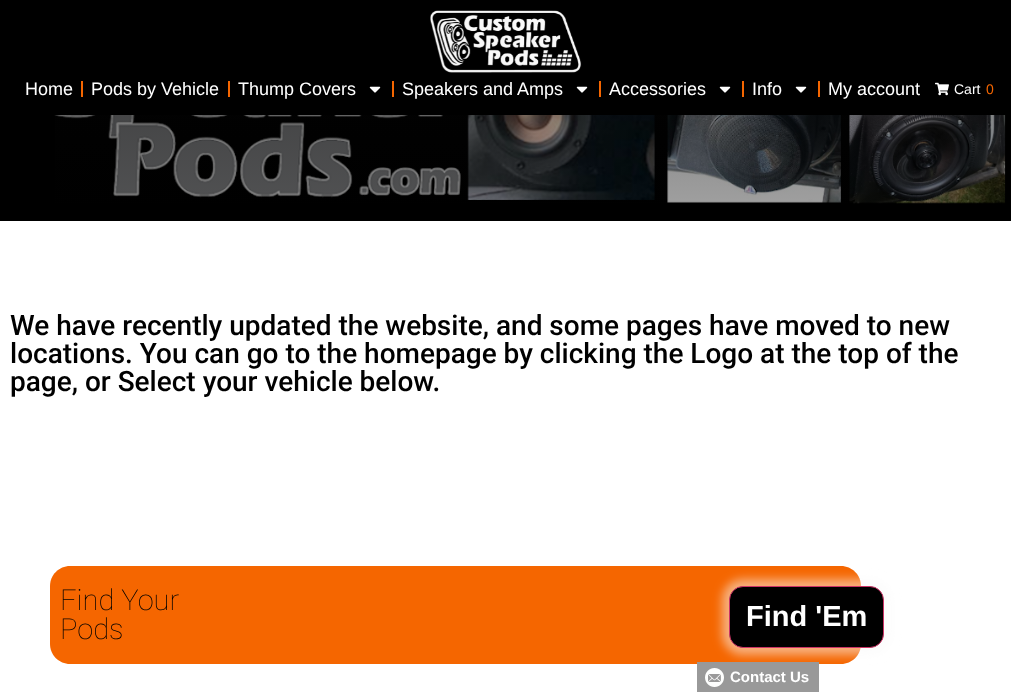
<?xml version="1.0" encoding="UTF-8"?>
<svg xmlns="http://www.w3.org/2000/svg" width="1011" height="692">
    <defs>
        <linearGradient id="g1" gradientUnits="userSpaceOnUse" x1="506" y1="-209" x2="506" y2="221"><stop offset="0" stop-color="#0C0C0C" stop-opacity="0.81"/><stop offset="1" stop-color="#000000" stop-opacity="0.36"/></linearGradient>
        <filter id="blur1" x="-50%" y="-200%" width="200%" height="500%"><feGaussianBlur stdDeviation="5"/></filter>
    </defs>
    <rect width="100%" height="100%" fill="#FFFFFF"/>
    <rect x="0" y="0" width="1011" height="221" fill="#000000"/>
    <image x="430" y="10" width="152" height="63" href="img_01.png"/>
    <text x="25" y="95" font-family="Liberation Sans" font-size="18" fill="#FFFFFF">Home</text>
    <rect x="81" y="81" width="2" height="16" fill="#F56600"/>
    <text x="91" y="95" font-family="Liberation Sans" font-size="18" fill="#FFFFFF">Pods by Vehicle</text>
    <rect x="228" y="81" width="2" height="16" fill="#F56600"/>
    <text x="238" y="95" font-family="Liberation Sans" font-size="18" fill="#FFFFFF">Thump Covers</text>
    <image x="369" y="86" width="12" height="7" href="img_02.png"/>
    <rect x="392" y="81" width="2" height="16" fill="#F56600"/>
    <text x="402" y="95" font-family="Liberation Sans" font-size="18" fill="#FFFFFF">Speakers and Amps</text>
    <image x="576" y="86" width="12" height="7" href="img_02.png"/>
    <rect x="599" y="81" width="2" height="16" fill="#F56600"/>
    <text x="609" y="95" font-family="Liberation Sans" font-size="18" fill="#FFFFFF">Accessories</text>
    <image x="719" y="86" width="12" height="7" href="img_02.png"/>
    <rect x="742" y="81" width="2" height="16" fill="#F56600"/>
    <text x="752" y="95" font-family="Liberation Sans" font-size="18" fill="#FFFFFF">Info</text>
    <image x="795" y="86" width="12" height="7" href="img_02.png"/>
    <rect x="818" y="81" width="2" height="16" fill="#F56600"/>
    <text x="828" y="95" font-family="Liberation Sans" font-size="18" fill="#FFFFFF">My account</text>
    <image x="935" y="82" width="14" height="14" href="img_03.png"/>
    <text x="954" y="94" font-family="Liberation Sans" font-size="14" fill="#FFFFFF">Cart</text>
    <text x="986" y="94" font-family="Liberation Sans" font-size="14" fill="#F56600">0</text>
    <image x="8" y="115" width="998" height="89" href="img_04.png"/>
    <rect x="55" y="115" width="951" height="89" fill="url(#g1)"/>
    <text font-family="Roboto" font-size="28" font-weight="500" fill="#000000">
        <tspan x="10" y="335">We have recently updated the website, and some pages have moved to new</tspan>
        <tspan x="10" y="363">locations. You can go to the homepage by clicking the Logo at the top of the</tspan>
        <tspan x="10" y="391">page, or Select your vehicle below.</tspan>
    </text>
    <path d="M 70 566 H 214 V 664 H 70 C 59 664 50 655 50 644 V 586 C 50 575 59 566 70 566 Z" fill="#F56600"/>
    <text font-family="Roboto" font-size="29" font-weight="100" fill="#000000">
        <tspan x="60" y="610">Find Your</tspan>
        <tspan x="60" y="639">Pods</tspan>
    </text>
    <rect x="214" y="566" width="505" height="98" fill="#F56600"/>
    <path d="M 719 566 H 841 C 852 566 861 575 861 586 V 644 C 861 655 852 664 841 664 H 719 Z" fill="#F56600"/>
    <rect x="722" y="579" width="169" height="76" rx="21" fill="#F9F9F9" fill-opacity="0.5" filter="url(#blur1)"/>
    <rect x="729.5" y="586.5" width="154" height="61" rx="13.5" fill="#000000" stroke="#CC3366"/>
    <text x="746" y="626" font-family="Liberation Sans" font-size="29" font-weight="700" fill="#FFFFFF">Find 'Em</text>
    <rect x="697" y="662" width="122" height="30" fill="#999999"/>
    <image x="705" y="668" width="19" height="19" href="img_05.png"/>
    <text x="730" y="682" font-family="Liberation Sans" font-size="15" font-weight="700" fill="#FFFFFF">Contact Us</text>
</svg>
